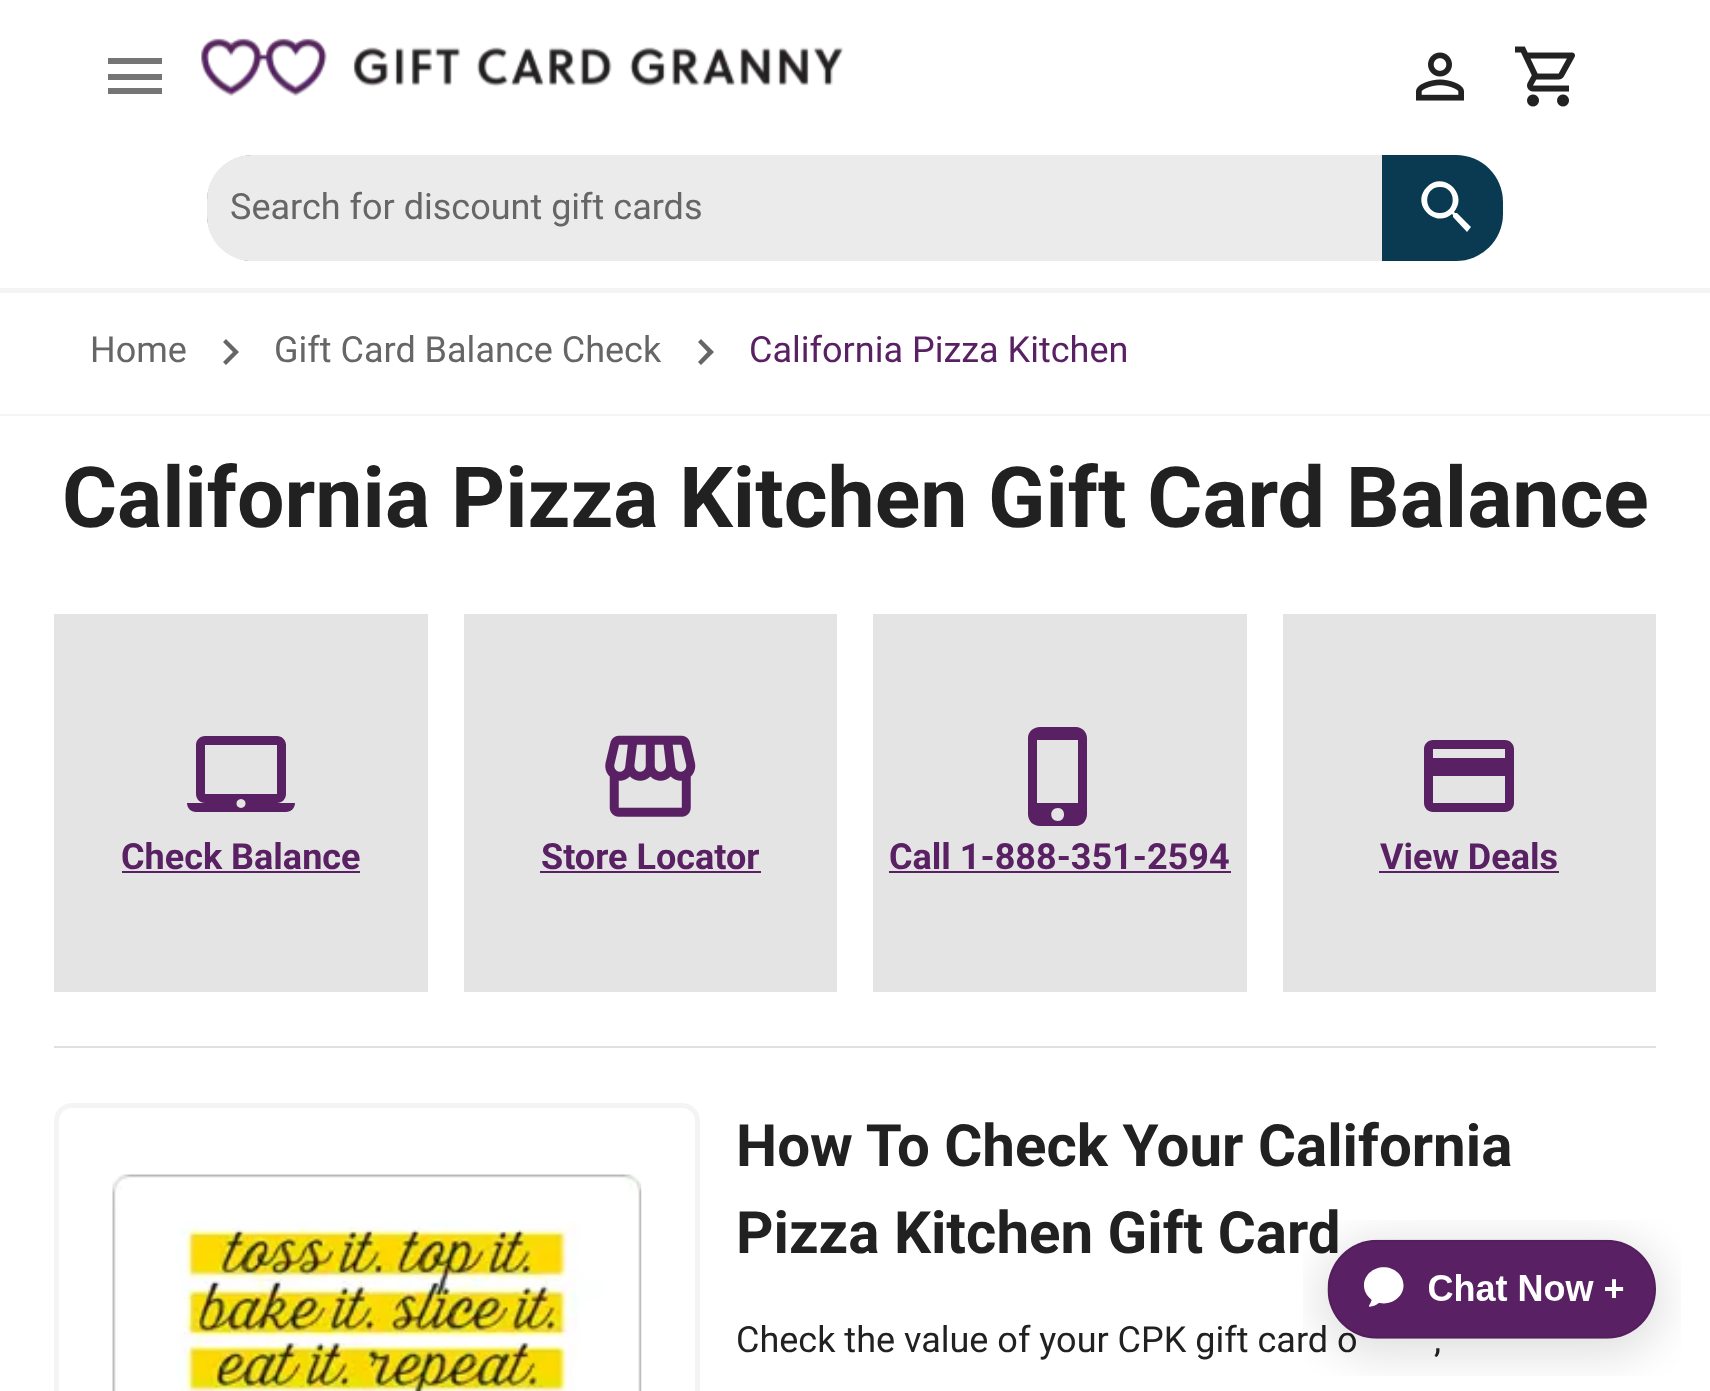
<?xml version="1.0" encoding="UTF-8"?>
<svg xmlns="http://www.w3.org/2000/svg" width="1710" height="1391">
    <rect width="100%" height="100%" fill="#FFFFFF"/>
    <rect x="0" y="288" width="1710" height="5" fill="#F4F4F4"/>
    <path d="M 108 94 H 162 V 88 H 108 Z M 108 80 H 162 V 74 H 108 Z M 108 58 V 64 H 162 V 58 Z" fill="#757575"/>
    <image x="201" y="38" width="643" height="58" href="img_01.png"/>
    <image x="1416" y="52" width="48" height="49" href="img_02.png"/>
    <image x="1515" y="46" width="60" height="61" href="img_03.png"/>
    <rect x="207" y="155" width="1296" height="106" rx="47" fill="#0A3A52"/>
    <path d="M 252 155 H 1382 V 261 H 252 C 227 261 207 241 207 216 V 200 C 207 175 227 155 252 155 Z" fill="#EBEBEB"/>
    <text x="230" y="219" font-family="Roboto" font-size="36" fill="#666666">Search for discount gift cards</text>
    <path d="M 1457 213 H 1455 L 1454 212 C 1469 195 1444 170 1427 187 C 1410 204 1435 229 1452 214 L 1453 215 V 217 L 1467 232 L 1471 227 Z M 1440 213 C 1423 213 1423 187 1440 187 C 1457 187 1457 213 1440 213" fill="#FFFFFF"/>
    <rect x="0" y="414" width="1710" height="2" fill="#F4F4F4"/>
    <text x="90" y="362" font-family="Roboto" font-size="36" fill="#666666">Home</text>
    <path d="M 226 339 L 223 342 L 233 352 L 223 362 L 226 365 L 239 352 Z" fill="#666666"/>
    <text x="274" y="362" font-family="Roboto" font-size="36" fill="#666666">Gift Card Balance Check</text>
    <path d="M 701 339 L 698 342 L 707.5 352 L 698 362 L 701 365 L 714 352 Z" fill="#666666"/>
    <text x="749" y="362" font-family="Roboto" font-size="36" fill="#592063">California Pizza Kitchen</text>
    <text x="62" y="527" font-family="Roboto" font-size="84.25" font-weight="700" fill="#212121">California Pizza Kitchen</text>
    <text x="988" y="527" font-family="Roboto" font-size="84.25" font-weight="700" fill="#212121">Gift Card Balance</text>
    <rect x="54" y="614" width="374" height="378" fill="#E4E4E4"/>
    <path d="M 277 803 C 282 803 286 799 286 794 V 745 C 286 740 282 736 277 736 H 205 C 200 736 196 740 196 745 V 794 C 196 799 200 803 205 803 H 187 C 187 808 191 812 196 812 H 286 C 291 812 295 808 295 803 Z M 205 745 H 277 V 794 H 205 Z M 241 808 C 235 808 235 799 241 799 C 247 799 247 808 241 808" fill="#592063"/>
    <text x="121" y="869" font-family="Roboto" font-size="36" font-weight="700" fill="#592063">Check Balance</text>
    <rect x="122" y="871" width="238" height="2" fill="#592063"/>
    <rect x="464" y="614" width="373" height="378" fill="#E4E4E4"/>
    <image x="605" y="735" width="91" height="82" href="img_04.png"/>
    <text x="541" y="869" font-family="Roboto" font-size="36" font-weight="700" fill="#592063">Store Locator</text>
    <rect x="540" y="871" width="221" height="2" fill="#592063"/>
    <rect x="873" y="614" width="374" height="378" fill="#E4E4E4"/>
    <path d="M 1076 727 H 1040 C 1033 727 1028 732 1028 738 V 814 C 1028 821 1033 826 1040 826 H 1076 C 1082 826 1087 821 1087 814 V 738 C 1087 732 1082 727 1076 727 M 1058 821 C 1049 821 1049 808 1058 808 C 1066 808 1066 821 1058 821 M 1078 803 H 1037 V 740 H 1078 Z" fill="#592063"/>
    <text x="889" y="869" font-family="Roboto" font-size="36" font-weight="700" fill="#592063">Call 1-888-351-2594</text>
    <rect x="889" y="871" width="342" height="2" fill="#592063"/>
    <rect x="1283" y="614" width="373" height="378" fill="#E4E4E4"/>
    <path d="M 1505 740 H 1433 C 1428 740 1424 744 1424 749 V 803 C 1424 808 1428 812 1433 812 H 1505 C 1510 812 1514 808 1514 803 V 749 C 1514 744 1510 740 1505 740 M 1505 803 H 1433 V 776 H 1505 Z M 1505 758 H 1433 V 749 H 1505 Z" fill="#592063"/>
    <text x="1380" y="869" font-family="Roboto" font-size="36" font-weight="700" fill="#592063">View Deals</text>
    <rect x="1379" y="871" width="180" height="2" fill="#592063"/>
    <rect x="54" y="1046" width="1602" height="2" fill="#E0E0E0"/>
    <rect x="56.5" y="1105.5" width="641" height="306" rx="15.5" fill="none" stroke="#F4F4F4" stroke-width="5"/>
    <image x="112" y="1174" width="530" height="217" href="img_05.png"/>
    <text font-family="Roboto" font-size="58.25" font-weight="700" fill="#212121">
        <tspan x="736" y="1166">How To Check Your California</tspan>
        <tspan x="736" y="1253">Pizza Kitchen Gift Card</tspan>
    </text>
    <text x="736" y="1352" font-family="Roboto" font-size="36" fill="#212121">Check the value of your CPK gift card o</text>
    <text x="1434" y="1352" font-family="Roboto" font-size="36" fill="#212121">,</text>
    <image x="1303" y="1220" width="378" height="156" href="img_06.png"/>
</svg>
